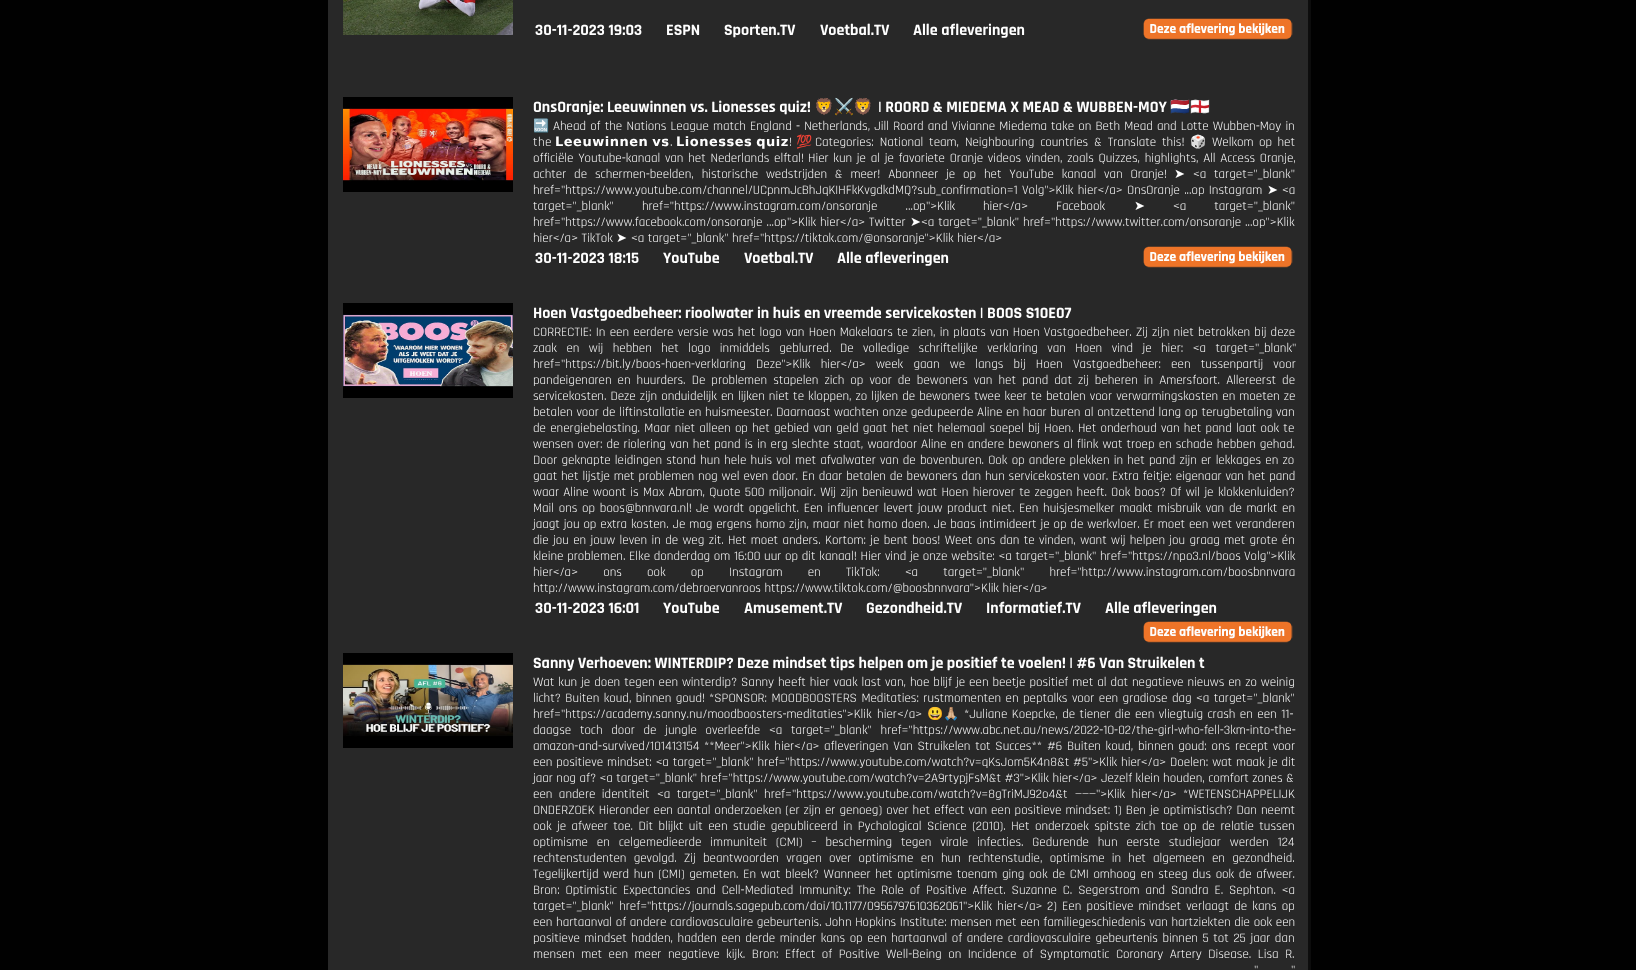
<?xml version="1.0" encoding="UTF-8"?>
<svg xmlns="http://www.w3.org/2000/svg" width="1636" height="970">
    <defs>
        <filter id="blur1" x="-50%" y="-200%" width="200%" height="500%"><feGaussianBlur stdDeviation="2"/></filter>
    </defs>
    <rect width="100%" height="100%" fill="#010101"/>
    <rect x="331" y="-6" width="980" height="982" fill="#111111" filter="url(#blur1)"/>
    <rect x="328" y="0" width="980" height="970" fill="#282828"/>
    <image x="343" y="0" width="170" height="35" href="img_01.png"/>
    <text x="535" y="35" font-family="Rajdhani" font-size="16" font-weight="700" fill="#FFFFFF">30-11-2023 19:03</text>
    <text x="666" y="35" font-family="Rajdhani" font-size="16" font-weight="700" fill="#FFFFFF">ESPN</text>
    <text x="724" y="35" font-family="Rajdhani" font-size="16" font-weight="700" fill="#FFFFFF">Sporten.TV</text>
    <text x="820" y="35" font-family="Rajdhani" font-size="16" font-weight="700" fill="#FFFFFF">Voetbal.TV</text>
    <text x="913" y="35" font-family="Rajdhani" font-size="16" font-weight="700" fill="#FFFFFF">Alle afleveringen</text>
    <image x="1143" y="18" width="150" height="22" href="img_02.png"/>
    <image x="343" y="97" width="170" height="95" href="img_03.png"/>
    <text x="533" y="112" font-family="Rajdhani" font-size="16" font-weight="700" fill="#FFFFFF">OnsOranje: Leeuwinnen vs. Lionesses quiz!</text>
    <text x="814" y="112" font-family="Noto Color Emoji" font-size="16" font-weight="700" fill="#FFFFFF">🦁⚔️🦁</text>
    <text x="878" y="112" font-family="Rajdhani" font-size="16" font-weight="700" fill="#FFFFFF">| ROORD &amp; MIEDEMA X MEAD &amp; WUBBEN-MOY</text>
    <text x="1170" y="112" font-family="Noto Color Emoji" font-size="16" font-weight="700" fill="#FFFFFF">🇳🇱🏴󠁧󠁢󠁥󠁮󠁧󠁿</text>
    <text x="533" y="130" font-family="Noto Color Emoji" font-size="13" fill="#FFFFFF">🔜</text>
    <text x="553" y="130" word-spacing="0.7" font-family="Rajdhani" font-size="13" fill="#FFFFFF">Ahead of the Nations League match England - Netherlands, Jill Roord and Vivianne Miedema take on Beth Mead and Lotte Wubben-Moy in</text>
    <text x="533" y="146" font-family="Rajdhani" font-size="13" letter-spacing="0.5" fill="#FFFFFF">the</text>
    <text x="555" y="146" word-spacing="-1" font-family="DejaVu Sans" font-size="13" font-weight="700" letter-spacing="0.5" fill="#FFFFFF">𝗟𝗲𝗲𝘂𝘄𝗶𝗻𝗻𝗲𝗻 𝘃𝘀</text>
    <text x="670" y="146" font-family="Rajdhani" font-size="13" letter-spacing="0.5" fill="#FFFFFF">.</text>
    <text x="676" y="146" word-spacing="-1" font-family="DejaVu Sans" font-size="13" font-weight="700" letter-spacing="0.5" fill="#FFFFFF">𝗟𝗶𝗼𝗻𝗲𝘀𝘀𝗲𝘀 𝗾𝘂𝗶𝘇</text>
    <text x="789" y="146" font-family="Rajdhani" font-size="13" letter-spacing="0.5" fill="#FFFFFF">!</text>
    <text x="796" y="146" font-family="Noto Color Emoji" font-size="13" letter-spacing="0.5" fill="#FFFFFF">💯</text>
    <text x="815" y="146" word-spacing="2.4" font-family="Rajdhani" font-size="13" fill="#FFFFFF">Categories: National team, Neighbouring countries &amp; Translate this!</text>
    <text x="1190" y="146" font-family="Noto Color Emoji" font-size="13" fill="#FFFFFF">🎲</text>
    <text x="1212" y="146" word-spacing="2" font-family="Rajdhani" font-size="13" fill="#FFFFFF">Welkom op het</text>
    <text x="533" y="162" word-spacing="1.25" font-family="Rajdhani" font-size="13" fill="#FFFFFF">officiële Youtube-kanaal van het Nederlands elftal!</text>
    <text x="808" y="162" word-spacing="1.25" font-family="Rajdhani" font-size="13" fill="#FFFFFF">Hier kun je al je favoriete Oranje videos vinden, zoals Quizzes, highlights, All Access Oranje,</text>
    <text x="533" y="178" word-spacing="4.4" font-family="Rajdhani" font-size="13" fill="#FFFFFF">achter de schermen-beelden, historische wedstrijden &amp; meer! Abonneer je op het YouTube kanaal van Oranje!</text>
    <text x="1174" y="178" font-family="DejaVu Sans" font-size="13" font-weight="700" fill="#FFFFFF">➤</text>
    <text x="1193" y="178" word-spacing="4.4" font-family="Rajdhani" font-size="13" fill="#FFFFFF">&lt;a target="_blank"</text>
    <text x="533" y="194" font-family="Rajdhani" font-size="13" fill="#FFFFFF">href="https://www.youtube.com/channel/UCpnmJcBhJqKIHFkKvgdkdMQ?sub_confirmation=1</text>
    <text x="1022" y="194" word-spacing="0.8" font-family="Rajdhani" font-size="13" fill="#FFFFFF">Volg"&gt;Klik hier&lt;/a&gt; OnsOranje ...op Instagram</text>
    <text x="1267" y="194" font-family="DejaVu Sans" font-size="13" font-weight="700" fill="#FFFFFF">➤</text>
    <text x="1282" y="194" font-family="Rajdhani" font-size="13" fill="#FFFFFF">&lt;a</text>
    <text x="533" y="210" word-spacing="24.5" font-family="Rajdhani" font-size="13" fill="#FFFFFF">target="_blank" href="https://www.instagram.com/onsoranje ...op"&gt;Klik hier&lt;/a&gt; Facebook</text>
    <text x="1134" y="210" font-family="DejaVu Sans" font-size="13" font-weight="700" fill="#FFFFFF">➤</text>
    <text x="1173" y="210" word-spacing="24.5" font-family="Rajdhani" font-size="13" fill="#FFFFFF">&lt;a target="_blank"</text>
    <text x="533" y="226" word-spacing="0.5" font-family="Rajdhani" font-size="13" fill="#FFFFFF">href="https://www.facebook.com/onsoranje ...op"&gt;Klik hier&lt;/a&gt; Twitter</text>
    <text x="910" y="226" font-family="DejaVu Sans" font-size="13" font-weight="700" fill="#FFFFFF">➤</text>
    <text x="921" y="226" word-spacing="0.5" font-family="Rajdhani" font-size="13" fill="#FFFFFF">&lt;a target="_blank" href="https://www.twitter.com/onsoranje ...op"&gt;Klik</text>
    <text x="533" y="242" font-family="Rajdhani" font-size="13" fill="#FFFFFF">hier&lt;/a&gt; TikTok</text>
    <text x="616" y="242" font-family="DejaVu Sans" font-size="13" font-weight="700" fill="#FFFFFF">➤</text>
    <text x="631" y="242" font-family="Rajdhani" font-size="13" fill="#FFFFFF">&lt;a target="_blank" href="https://tiktok.com/@onsoranje"&gt;Klik hier&lt;/a&gt;</text>
    <text x="535" y="263" font-family="Rajdhani" font-size="16" font-weight="700" fill="#FFFFFF">30-11-2023 18:15</text>
    <text x="663" y="263" font-family="Rajdhani" font-size="16" font-weight="700" fill="#FFFFFF">YouTube</text>
    <text x="744" y="263" font-family="Rajdhani" font-size="16" font-weight="700" fill="#FFFFFF">Voetbal.TV</text>
    <text x="837" y="263" font-family="Rajdhani" font-size="16" font-weight="700" fill="#FFFFFF">Alle afleveringen</text>
    <image x="1143" y="246" width="150" height="22" href="img_02.png"/>
    <image x="343" y="303" width="170" height="95" href="img_04.png"/>
    <text x="533" y="318" font-family="Rajdhani" font-size="16" font-weight="700" fill="#FFFFFF">Hoen Vastgoedbeheer: rioolwater in huis en vreemde servicekosten | BOOS S10E07</text>
    <text font-family="Rajdhani" font-size="13" fill="#FFFFFF">
        <tspan x="533" y="336" word-spacing="0.75">CORRECTIE: In een eerdere versie was het logo van Hoen Makelaars te zien, in plaats van Hoen Vastgoedbeheer. Zij zijn niet betrokken bij deze</tspan>
        <tspan x="533" y="352" word-spacing="6">zaak en wij hebben het logo inmiddels geblurred.</tspan>
    </text>
    <text x="840" y="352" word-spacing="6" font-family="Rajdhani" font-size="13" fill="#FFFFFF">De volledige schriftelijke verklaring van Hoen vind je hier: &lt;a target="_blank"</text>
    <text x="533" y="368" font-family="Rajdhani" font-size="13" fill="#FFFFFF">href="https://bit.ly/boos-hoen-verklaring</text>
    <text x="756" y="368" word-spacing="6.75" font-family="Rajdhani" font-size="13" fill="#FFFFFF">Deze"&gt;Klik hier&lt;/a&gt; week gaan we langs bij Hoen Vastgoedbeheer: een tussenpartij voor</text>
    <text font-family="Rajdhani" font-size="13" fill="#FFFFFF">
        <tspan x="533" y="384" word-spacing="2.6">pandeigenaren en huurders. De problemen stapelen zich op voor de bewoners van het pand dat zij beheren in Amersfoort. Allereerst de</tspan>
        <tspan x="533" y="400" word-spacing="0.6">servicekosten. Deze zijn onduidelijk en lijken niet te kloppen, zo lijken de bewoners twee keer te betalen voor verwarmingskosten en moeten ze</tspan>
        <tspan x="533" y="416" word-spacing="0.25">betalen voor de liftinstallatie en huismeester. Daarnaast wachten onze gedupeerde Aline en haar buren al ontzettend lang op terugbetaling van</tspan>
        <tspan x="533" y="432" word-spacing="0.8">de energiebelasting. Maar niet alleen op het gebied van geld gaat het niet helemaal soepel bij Hoen. Het onderhoud van het pand laat ook te</tspan>
        <tspan x="533" y="448" word-spacing="0.65">wensen over: de riolering van het pand is in erg slechte staat, waardoor Aline en andere bewoners al flink wat troep en schade hebben gehad.</tspan>
        <tspan x="533" y="464" word-spacing="0.75">Door geknapte leidingen stond hun hele huis vol met afvalwater van de bovenburen. Ook op andere plekken in het pand zijn er lekkages en zo</tspan>
        <tspan x="533" y="480" word-spacing="0.4">gaat het lijstje met problemen nog wel even door. En daar betalen de bewoners dan hun servicekosten voor. Extra feitje: eigenaar van het pand</tspan>
        <tspan x="533" y="496" word-spacing="0.9">waar Aline woont is Max Abram, Quote 500 miljonair. Wij zijn benieuwd wat Hoen hierover te zeggen heeft.</tspan>
    </text>
    <text x="1111" y="496" word-spacing="0.9" font-family="Rajdhani" font-size="13" fill="#FFFFFF">Ook boos? Of wil je klokkenluiden?</text>
    <text x="533" y="512" word-spacing="1.25" font-family="Rajdhani" font-size="13" fill="#FFFFFF">Mail ons op boos@bnnvara.nl!</text>
    <text x="696" y="512" word-spacing="1.25" font-family="Rajdhani" font-size="13" fill="#FFFFFF">Je wordt opgelicht. Een influencer levert jouw product niet. Een huisjesmelker maakt misbruik van de markt en</text>
    <text font-family="Rajdhani" font-size="13" fill="#FFFFFF">
        <tspan x="533" y="528" word-spacing="0.4">jaagt jou op extra kosten. Je mag ergens homo zijn, maar niet homo doen. Je baas intimideert je op de werkvloer. Er moet een wet veranderen</tspan>
        <tspan x="533" y="544" word-spacing="0.9">die jou en jouw leven in de weg zit. Het moet anders. Kortom: je bent boos! Weet ons dan te vinden, want wij helpen jou graag met grote én</tspan>
        <tspan x="533" y="560" word-spacing="0.25">kleine problemen. Elke donderdag om 16:00 uur op dit kanaal! Hier vind je onze website: &lt;a target="_blank" href="https://npo3.nl/boos</tspan>
    </text>
    <text x="1244" y="560" font-family="Rajdhani" font-size="13" fill="#FFFFFF">Volg"&gt;Klik</text>
    <text font-family="Rajdhani" font-size="13" fill="#FFFFFF">
        <tspan x="533" y="576" word-spacing="21.75">hier&lt;/a&gt; ons ook op Instagram en TikTok: &lt;a target="_blank" href="http://www.instagram.com/boosbnnvara</tspan>
        <tspan x="533" y="592">http://www.instagram.com/debroervanroos https://www.tiktok.com/@boosbnnvara"&gt;Klik hier&lt;/a&gt;</tspan>
    </text>
    <text x="535" y="613" font-family="Rajdhani" font-size="16" font-weight="700" fill="#FFFFFF">30-11-2023 16:01</text>
    <text x="663" y="613" font-family="Rajdhani" font-size="16" font-weight="700" fill="#FFFFFF">YouTube</text>
    <text x="744" y="613" font-family="Rajdhani" font-size="16" font-weight="700" fill="#FFFFFF">Amusement.TV</text>
    <text x="866" y="613" font-family="Rajdhani" font-size="16" font-weight="700" fill="#FFFFFF">Gezondheid.TV</text>
    <text x="986" y="613" font-family="Rajdhani" font-size="16" font-weight="700" fill="#FFFFFF">Informatief.TV</text>
    <text x="1105" y="613" font-family="Rajdhani" font-size="16" font-weight="700" fill="#FFFFFF">Alle afleveringen</text>
    <image x="1143" y="621" width="150" height="22" href="img_02.png"/>
    <image x="343" y="653" width="170" height="95" href="img_05.png"/>
    <text x="533" y="668" font-family="Rajdhani" font-size="16" font-weight="700" fill="#FFFFFF">Sanny Verhoeven: WINTERDIP? Deze mindset tips helpen om je positief te voelen! | #6 Van Struikelen t</text>
    <text font-family="Rajdhani" font-size="13" fill="#FFFFFF">
        <tspan x="533" y="686" word-spacing="0.5">Wat kun je doen tegen een winterdip? Sanny heeft hier vaak last van, hoe blijf je een beetje positief met al dat negatieve nieuws en zo weinig</tspan>
        <tspan x="533" y="702" word-spacing="1">licht? Buiten koud, binnen goud!</tspan>
    </text>
    <text x="709" y="702" word-spacing="1" font-family="Rajdhani" font-size="13" fill="#FFFFFF">*SPONSOR: MOODBOOSTERS Meditaties: rustmomenten en peptalks voor een gradiose dag &lt;a target="_blank"</text>
    <text x="533" y="718" word-spacing="2" font-family="Rajdhani" font-size="13" fill="#FFFFFF">href="https://academy.sanny.nu/moodboosters-meditaties"&gt;Klik hier&lt;/a&gt;</text>
    <text x="927" y="718" font-family="Noto Color Emoji" font-size="13" fill="#FFFFFF">😃🙏🏼</text>
    <text x="964" y="718" word-spacing="1" font-family="Rajdhani" font-size="13" fill="#FFFFFF">*Juliane Koepcke, de tiener die een vliegtuig crash en een 11-</text>
    <text font-family="Rajdhani" font-size="13" fill="#FFFFFF">
        <tspan x="533" y="734" word-spacing="5.25">daagse toch door de jungle overleefde &lt;a target="_blank" href="https://www.abc.net.au/news/2022-10-02/the-girl-who-fell-3km-into-the-</tspan>
        <tspan x="533" y="750">amazon-and-survived/101413154</tspan>
    </text>
    <text x="704" y="750" word-spacing="1.25" font-family="Rajdhani" font-size="13" fill="#FFFFFF">**Meer"&gt;Klik hier&lt;/a&gt; afleveringen Van Struikelen tot Succes**</text>
    <text x="1047" y="750" word-spacing="1.25" font-family="Rajdhani" font-size="13" fill="#FFFFFF">#6 Buiten koud, binnen goud: ons recept voor</text>
    <text x="533" y="766" word-spacing="0.4" font-family="Rajdhani" font-size="13" fill="#FFFFFF">een positieve mindset: &lt;a target="_blank" href="https://www.youtube.com/watch?v=qKsJom5K4n8&amp;t</text>
    <text x="1073" y="766" word-spacing="0.4" font-family="Rajdhani" font-size="13" fill="#FFFFFF">#5"&gt;Klik hier&lt;/a&gt; Doelen: wat maak je dit</text>
    <text font-family="Rajdhani" font-size="13" fill="#FFFFFF">
        <tspan x="533" y="782">jaar nog af? &lt;a target="_blank" href="https://www.youtube.com/watch?v=2A9rtypjFsM&amp;t #3"&gt;Klik hier&lt;/a&gt; Jezelf klein houden, comfort zones &amp;</tspan>
        <tspan x="533" y="798" word-spacing="3">een andere identiteit</tspan>
    </text>
    <text x="657" y="798" word-spacing="3" font-family="Rajdhani" font-size="13" fill="#FFFFFF">&lt;a target="_blank" href="https://www.youtube.com/watch?v=8gTriMJ92o4&amp;t</text>
    <text x="1075" y="798" word-spacing="3" font-family="Rajdhani" font-size="13" fill="#FFFFFF">———"&gt;Klik hier&lt;/a&gt;</text>
    <text x="1183" y="798" font-family="Rajdhani" font-size="13" fill="#FFFFFF">*WETENSCHAPPELIJK</text>
    <text x="533" y="814" word-spacing="0.6" font-family="Rajdhani" font-size="13" fill="#FFFFFF">ONDERZOEK Hieronder een aantal onderzoeken (er zijn er genoeg) over het effect van een positieve mindset:</text>
    <text x="1114" y="814" word-spacing="0.6" font-family="Rajdhani" font-size="13" fill="#FFFFFF">1) Ben je optimistisch? Dan neemt</text>
    <text font-family="Rajdhani" font-size="13" fill="#FFFFFF">
        <tspan x="533" y="830" word-spacing="2">ook je afweer toe. Dit blijkt uit een studie gepubliceerd in Pychological Science (2010). Het onderzoek spitste zich toe op de relatie tussen</tspan>
        <tspan x="533" y="846" word-spacing="5.4">optimisme en celgemedieerde immuniteit (CMI) – bescherming tegen virale infecties. Gedurende hun eerste studiejaar werden 124</tspan>
        <tspan x="533" y="862" word-spacing="3.75">rechtenstudenten gevolgd. Zij beantwoorden vragen over optimisme en hun rechtenstudie, optimisme in het algemeen en gezondheid.</tspan>
        <tspan x="533" y="878" word-spacing="1.15">Tegelijkertijd werd hun (CMI) gemeten. En wat bleek? Wanneer het optimisme toenam ging ook de CMI omhoog en steeg dus ook de afweer.</tspan>
        <tspan x="533" y="894" word-spacing="2.4">Bron: Optimistic Expectancies and Cell-Mediated Immunity: The Role of Positive Affect. Suzanne C. Segerstrom and Sandra E. Sephton. &lt;a</tspan>
        <tspan x="533" y="910" word-spacing="1.75">target="_blank" href="https://journals.sagepub.com/doi/10.1177/0956797610362061"&gt;Klik hier&lt;/a&gt;</tspan>
    </text>
    <text x="1047" y="910" word-spacing="1.75" font-family="Rajdhani" font-size="13" fill="#FFFFFF">2) Een positieve mindset verlaagt de kans op</text>
    <text font-family="Rajdhani" font-size="13" fill="#FFFFFF">
        <tspan x="533" y="926" word-spacing="0.2">een hartaanval of andere cardiovasculaire gebeurtenis. John Hopkins Institute: mensen met een familiegeschiedenis van hartziekten die ook een</tspan>
        <tspan x="533" y="942" word-spacing="1.1">positieve mindset hadden, hadden een derde minder kans op een hartaanval of andere cardiovasculaire gebeurtenis binnen 5 tot 25 jaar dan</tspan>
        <tspan x="533" y="958" word-spacing="3.1">mensen met een meer negatieve kijk. Bron: Effect of Positive Well-Being on Incidence of Symptomatic Coronary Artery Disease. Lisa R.</tspan>
    </text>
    <text x="1254" y="974" word-spacing="6" font-family="Rajdhani" font-size="13" fill="#FFFFFF">"</text>
    <text x="1291" y="974" word-spacing="6" font-family="Rajdhani" font-size="13" fill="#FFFFFF">"</text>
</svg>
